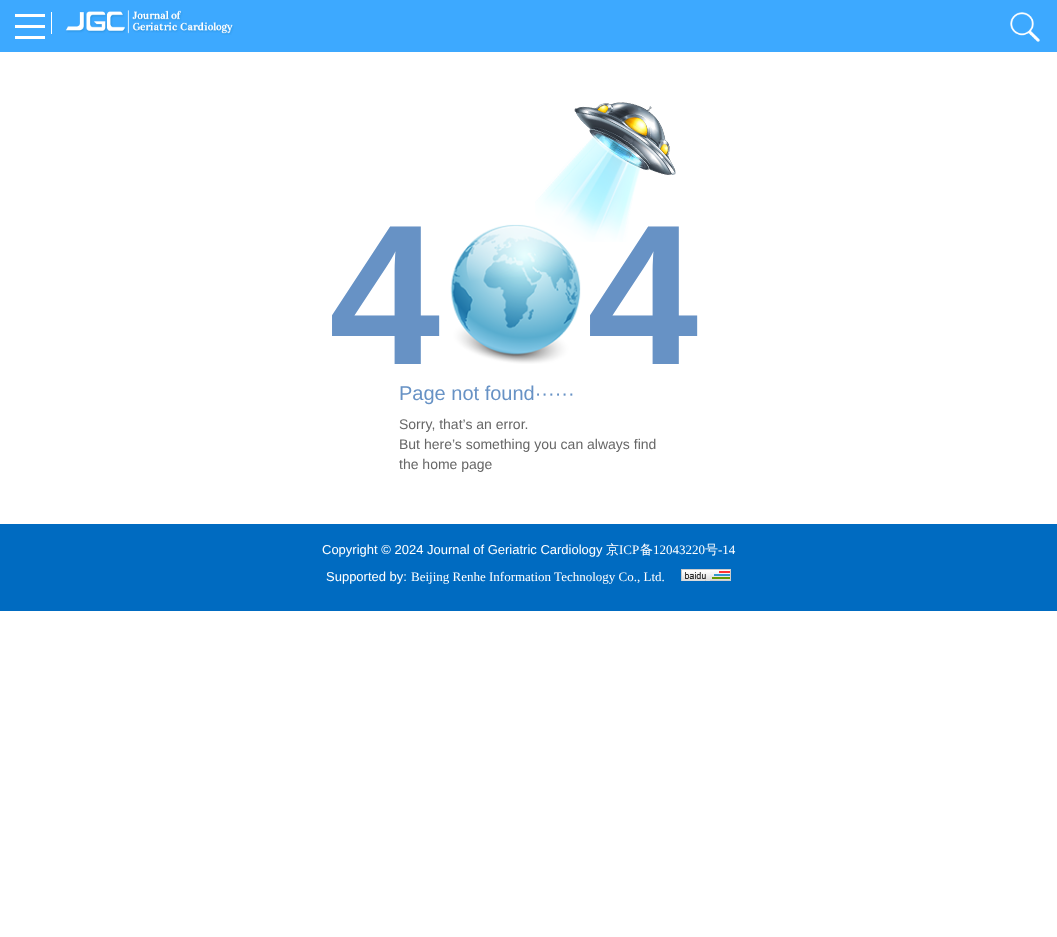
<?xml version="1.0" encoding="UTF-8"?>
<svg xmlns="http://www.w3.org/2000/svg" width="1057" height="937">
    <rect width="100%" height="100%" fill="#FFFFFF"/>
    <rect x="0" y="0" width="1057" height="52" fill="#3DA9FF"/>
    <rect x="15" y="14" width="30" height="3" fill="#FFFFFF"/>
    <rect x="15" y="25" width="30" height="3" fill="#FFFFFF"/>
    <rect x="15" y="36" width="30" height="3" fill="#FFFFFF"/>
    <rect x="51" y="12" width="1" height="22" fill="#FFFFFF"/>
    <image x="65" y="10" width="169" height="25" href="img_01.png"/>
    <image x="1010" y="12" width="30" height="30" href="img_02.png"/>
    <image x="450" y="224" width="131" height="140" href="img_04.png"/>
    <text x="587" y="364" font-family="Liberation Sans" font-size="200" font-weight="700" fill="#6792C5">4</text>
    <image x="535" y="102" width="141" height="140" href="img_03.png"/>
    <text x="329" y="364" font-family="Liberation Sans" font-size="200" font-weight="700" fill="#6792C5">4</text>
    <text x="399" y="400" font-family="Liberation Sans" font-size="20" fill="#6792C5">Page not found······</text>
    <text font-family="Liberation Sans" font-size="14" fill="#666666">
        <tspan x="399" y="429">Sorry, that’s an error.</tspan>
        <tspan x="399" y="449">But here’s something you can always find</tspan>
        <tspan x="399" y="469">the home page</tspan>
    </text>
    <rect x="0" y="524" width="1057" height="87" fill="#006BC1"/>
    <text x="322" y="554" font-family="Liberation Sans" font-size="13" fill="#FFFFFF">Copyright © 2024 Journal of Geriatric Cardiology</text>
    <text x="606" y="554" font-family="WenQuanYi Zen Hei" font-size="13" font-weight="500" fill="#FFFFFF">京</text>
    <text x="619" y="554" font-family="Liberation Serif" font-size="13" fill="#FFFFFF">ICP</text>
    <text x="640" y="554" font-family="WenQuanYi Zen Hei" font-size="13" font-weight="500" fill="#FFFFFF">备</text>
    <text x="653" y="554" font-family="Liberation Serif" font-size="13" fill="#FFFFFF">12043220</text>
    <text x="705" y="554" font-family="WenQuanYi Zen Hei" font-size="13" font-weight="500" fill="#FFFFFF">号</text>
    <text x="718" y="554" font-family="Liberation Serif" font-size="13" fill="#FFFFFF">-14</text>
    <text x="326" y="581" font-family="Liberation Sans" font-size="13" fill="#FFFFFF">Supported by:</text>
    <text x="411" y="581" font-family="Liberation Serif" font-size="13" fill="#FFFFFF">Beijing Renhe Information Technology Co., Ltd.</text>
    <image x="681" y="569" width="50" height="12" href="img_05.png"/>
</svg>
